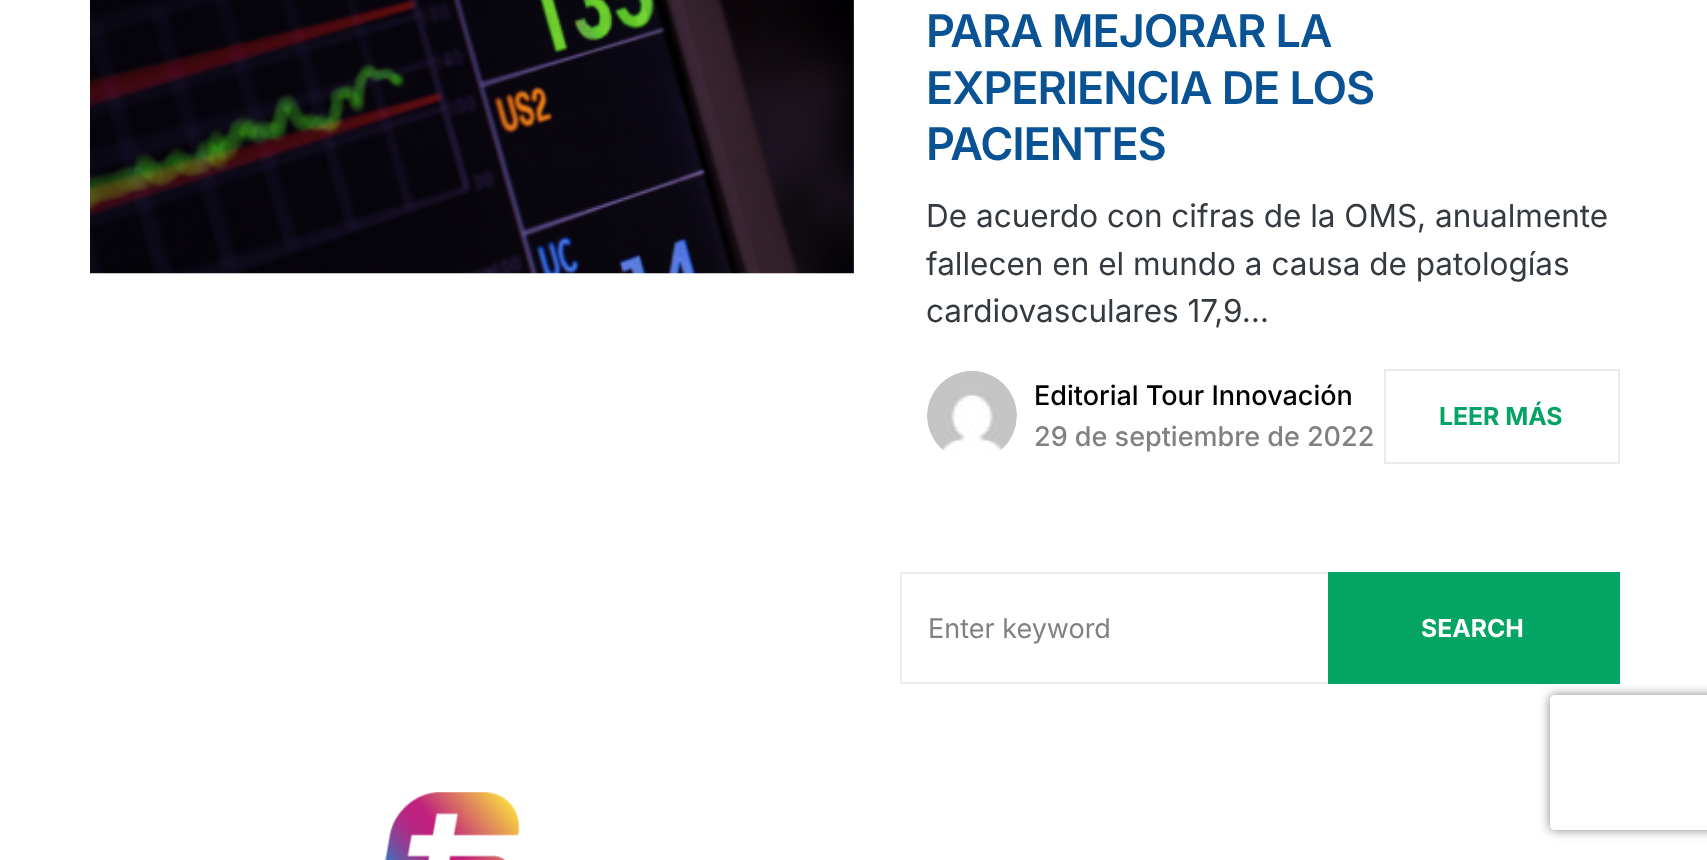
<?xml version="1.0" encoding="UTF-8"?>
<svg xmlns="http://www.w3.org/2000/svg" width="1707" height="860">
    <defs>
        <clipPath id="clip1"><path d="M 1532 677 H 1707 V 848 H 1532 Z M 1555 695 H 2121 C 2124 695 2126 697 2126 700 V 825 C 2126 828 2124 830 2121 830 H 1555 C 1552 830 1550 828 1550 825 V 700 C 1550 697 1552 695 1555 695 Z" clip-rule="evenodd"/></clipPath>
        <filter id="blur1" x="-50%" y="-200%" width="200%" height="500%"><feGaussianBlur stdDeviation="5.5"/></filter>
    </defs>
    <rect width="100%" height="100%" fill="#FFFFFF"/>
    <image x="90" y="0" width="764" height="274" href="img_01.png"/>
    <text font-family="Inter" font-size="45" font-weight="600" letter-spacing="-1.1" fill="#095394">
        <tspan x="926" y="47">PARA MEJORAR LA</tspan>
        <tspan x="926" y="104">EXPERIENCIA DE LOS</tspan>
        <tspan x="926" y="160">PACIENTES</tspan>
    </text>
    <text font-family="Inter" font-size="31.5" fill="#343A40">
        <tspan x="926" y="227">De acuerdo con cifras de la OMS, anualmente</tspan>
        <tspan x="926" y="275">fallecen en el mundo a causa de patologías</tspan>
        <tspan x="926" y="322">cardiovasculares 17,9…</tspan>
    </text>
    <image x="927" y="371" width="90" height="80" href="img_02.png"/>
    <text x="1034" y="405" font-family="Inter" font-size="27" font-weight="500" fill="#000000">Editorial Tour Innovación</text>
    <text x="1034" y="446" font-family="Inter" font-size="27" font-weight="500" fill="#818181">29 de septiembre de 2022</text>
    <rect x="1385" y="370" width="234" height="93" fill="none" stroke="#E9ECEF" stroke-width="2"/>
    <text x="1439" y="425" font-family="Inter" font-size="24.75" font-weight="700" fill="#03A464">LEER MÁS</text>
    <rect x="900" y="572" width="428" height="2" fill="#E9ECEF"/>
    <rect x="900" y="682" width="428" height="2" fill="#E9ECEF"/>
    <rect x="900" y="572" width="2" height="112" fill="#E9ECEF"/>
    <text x="928" y="638" font-family="Inter" font-size="27" fill="#818181">Enter keyword</text>
    <rect x="1328" y="572" width="292" height="112" fill="#03A464"/>
    <text x="1421" y="637" font-family="Inter" font-size="24.75" font-weight="700" fill="#FFFFFF">SEARCH</text>
    <image x="384" y="792" width="136" height="68" href="img_03.png"/>
    <g clip-path="url(#clip1)">
        <rect x="1550" y="695" width="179" height="135" rx="5" fill="#808080" filter="url(#blur1)"/>
    </g>
</svg>
